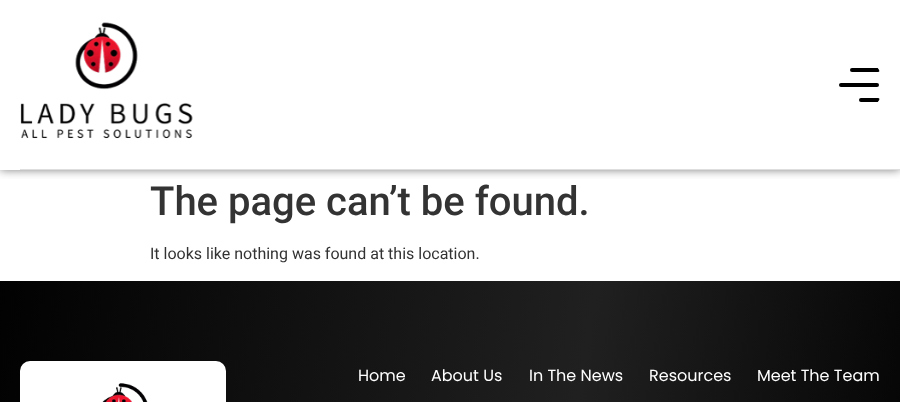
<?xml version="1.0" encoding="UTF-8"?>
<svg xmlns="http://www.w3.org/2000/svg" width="900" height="402">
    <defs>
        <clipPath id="clip1"><rect x="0" y="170" width="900" height="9"/></clipPath>
        <filter id="blur1" x="-50%" y="-200%" width="200%" height="500%"><feGaussianBlur stdDeviation="5"/></filter>
        <clipPath id="clip2"><rect x="838" y="64" width="42" height="42" rx="10"/></clipPath>
        <linearGradient id="g1" gradientUnits="userSpaceOnUse" x1="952" y1="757" x2="-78" y2="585"><stop offset="0.03" stop-color="#000000"/><stop offset="0.41" stop-color="#202020"/><stop offset="1" stop-color="#000000"/></linearGradient>
    </defs>
    <rect width="100%" height="100%" fill="#FFFFFF"/>
    <g clip-path="url(#clip1)">
        <rect x="0" y="0" width="900" height="170" fill="#000000" fill-opacity="0.5" filter="url(#blur1)"/>
    </g>
    <rect x="20" y="169" width="880" height="1" fill="#DEDEDE"/>
    <image x="20" y="22" width="173" height="117" href="img_01.png"/>
    <g clip-path="url(#clip2)">
        <rect x="850" y="68" width="30" height="4" rx="2" fill="#000000"/>
    </g>
    <rect x="839" y="83" width="40" height="4" rx="2" fill="#000000"/>
    <g clip-path="url(#clip2)">
        <rect x="859" y="98" width="21" height="4" rx="2" fill="#000000"/>
    </g>
    <text x="150" y="215" font-family="Roboto" font-size="40" font-weight="500" fill="#333333">The page can’t be found.</text>
    <text x="150" y="259" font-family="Roboto" font-size="16" fill="#333333">It looks like nothing was found at this location.</text>
    <rect x="0" y="281" width="900" height="121" fill="url(#g1)"/>
    <rect x="20" y="361" width="206" height="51" rx="10" fill="#FFFFFF"/>
    <image x="102" y="383" width="46" height="19" href="img_02.png"/>
    <text x="358" y="381" font-family="Poppins" font-size="16" fill="#FFFFFF">Home</text>
    <text x="431" y="381" font-family="Poppins" font-size="16" fill="#FFFFFF">About Us</text>
    <text x="529" y="381" font-family="Poppins" font-size="16" fill="#FFFFFF">In The News</text>
    <text x="649" y="381" font-family="Poppins" font-size="16" fill="#FFFFFF">Resources</text>
    <text x="757" y="381" font-family="Poppins" font-size="16" fill="#FFFFFF">Meet The Team</text>
</svg>
